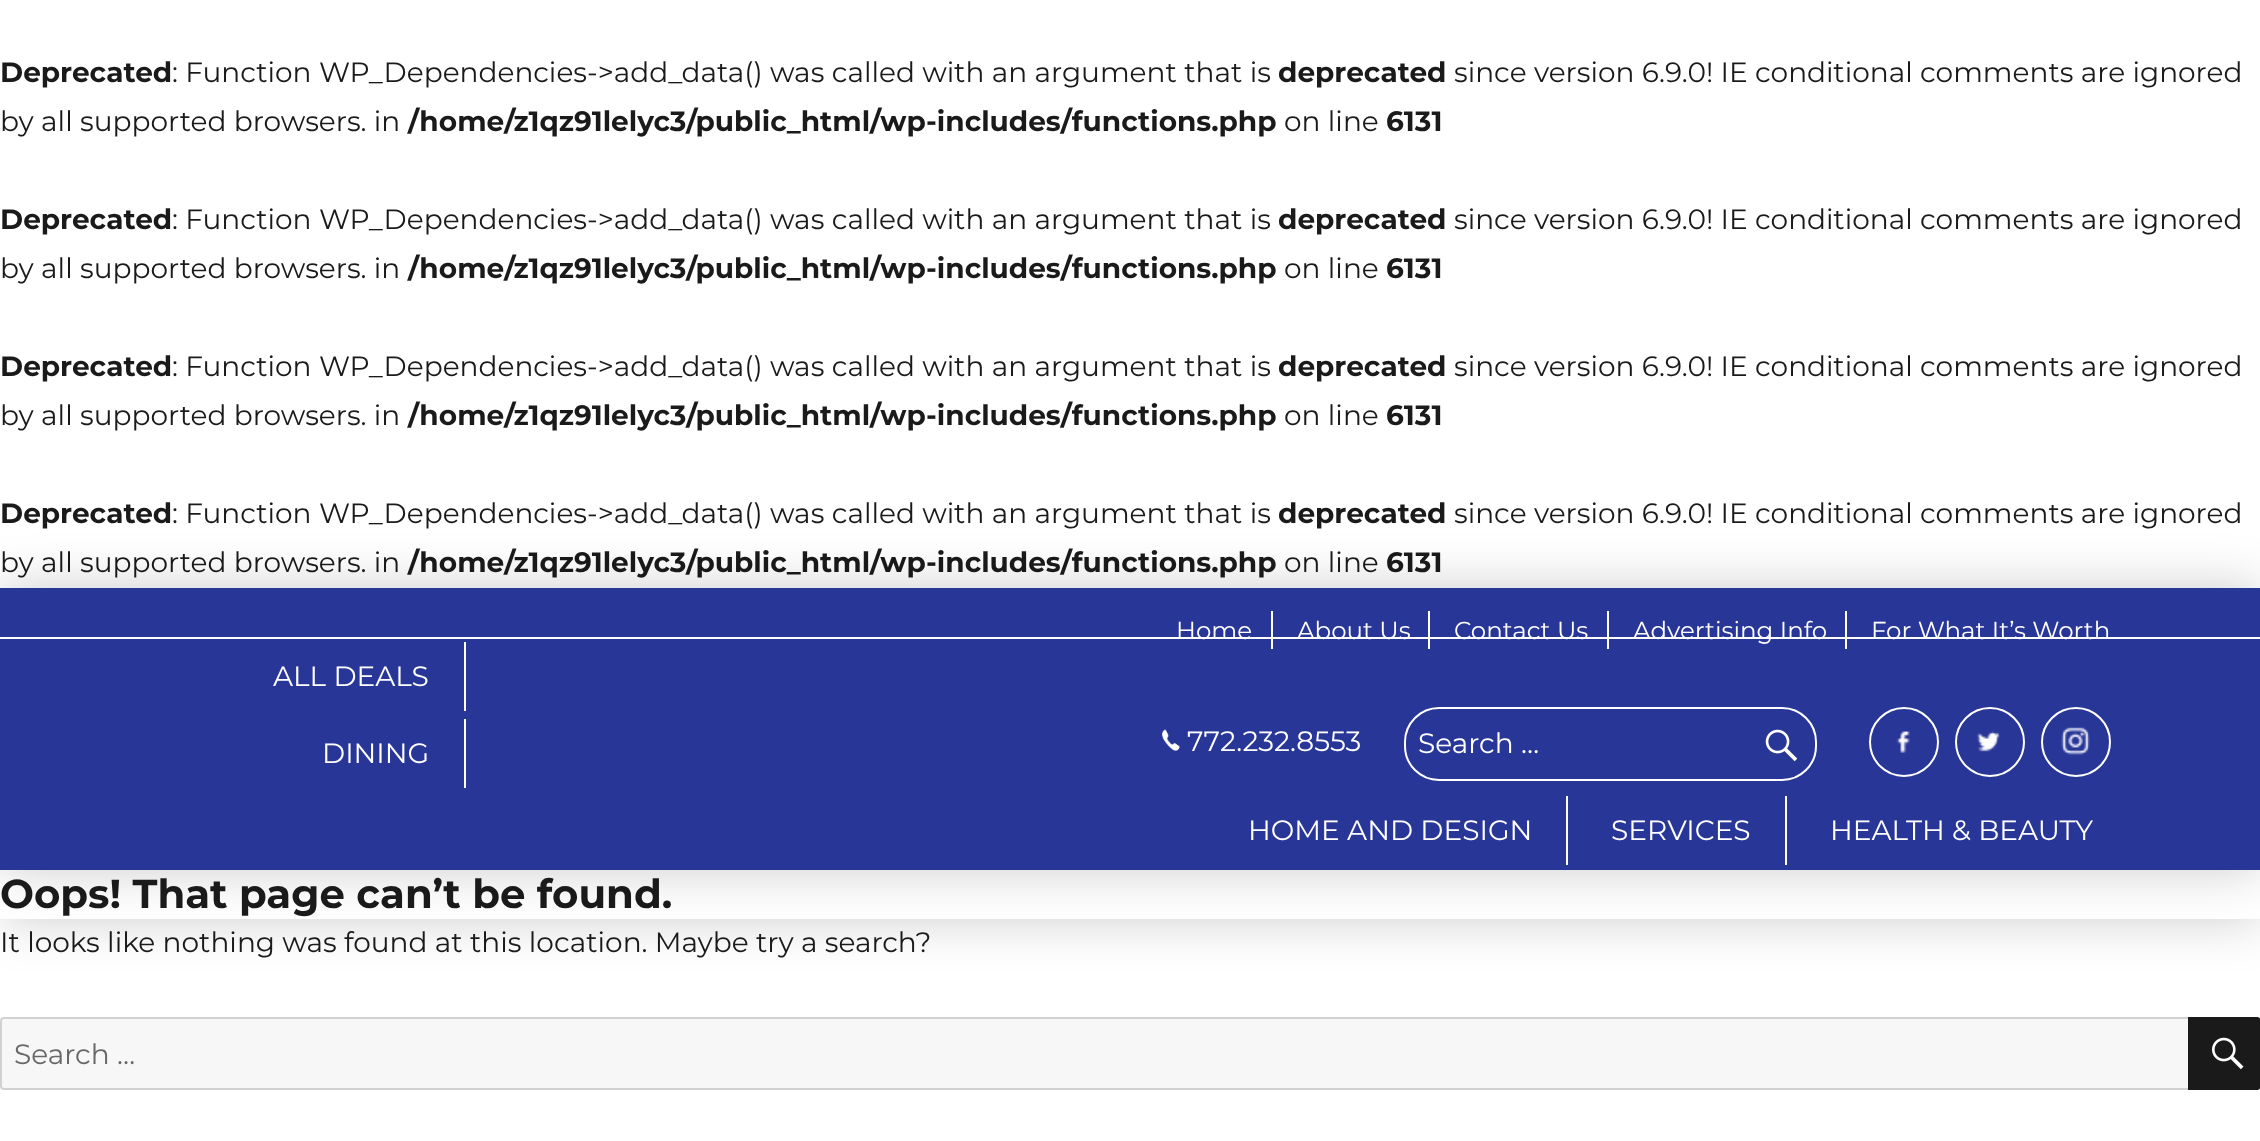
<?xml version="1.0" encoding="UTF-8"?>
<svg xmlns="http://www.w3.org/2000/svg" width="2260" height="1141">
    <defs>
        <filter id="blur1" x="-50%" y="-200%" width="200%" height="500%"><feGaussianBlur stdDeviation="26"/></filter>
        <clipPath id="clip1"><path d="M 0 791 H 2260 V 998 H 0 Z M 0 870 H 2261 V 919 H 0 Z" clip-rule="evenodd"/></clipPath>
    </defs>
    <rect width="100%" height="100%" fill="#FFFFFF"/>
    <text x="0" y="82" font-family="Montserrat" font-size="28" font-weight="700" fill="#1A1A1A">Deprecated</text>
    <text x="172" y="82" font-family="Montserrat" font-size="28" fill="#1A1A1A">: Function WP_Dependencies-&gt;add_data() was called with an argument that is</text>
    <text x="1278" y="82" font-family="Montserrat" font-size="28" font-weight="700" fill="#1A1A1A">deprecated</text>
    <text x="1454" y="82" font-family="Montserrat" font-size="28" fill="#1A1A1A">since version 6.9.0! IE conditional comments are ignored</text>
    <text x="0" y="131" font-family="Montserrat" font-size="28" fill="#1A1A1A">by all supported browsers. in</text>
    <text x="408" y="131" font-family="Montserrat" font-size="28" font-weight="700" fill="#1A1A1A">/home/z1qz91lelyc3/public_html/wp-includes/functions.php</text>
    <text x="1284" y="131" font-family="Montserrat" font-size="28" fill="#1A1A1A">on line</text>
    <text x="1386" y="131" font-family="Montserrat" font-size="28" font-weight="700" fill="#1A1A1A">6131</text>
    <text x="0" y="229" font-family="Montserrat" font-size="28" font-weight="700" fill="#1A1A1A">Deprecated</text>
    <text x="172" y="229" font-family="Montserrat" font-size="28" fill="#1A1A1A">: Function WP_Dependencies-&gt;add_data() was called with an argument that is</text>
    <text x="1278" y="229" font-family="Montserrat" font-size="28" font-weight="700" fill="#1A1A1A">deprecated</text>
    <text x="1454" y="229" font-family="Montserrat" font-size="28" fill="#1A1A1A">since version 6.9.0! IE conditional comments are ignored</text>
    <text x="0" y="278" font-family="Montserrat" font-size="28" fill="#1A1A1A">by all supported browsers. in</text>
    <text x="408" y="278" font-family="Montserrat" font-size="28" font-weight="700" fill="#1A1A1A">/home/z1qz91lelyc3/public_html/wp-includes/functions.php</text>
    <text x="1284" y="278" font-family="Montserrat" font-size="28" fill="#1A1A1A">on line</text>
    <text x="1386" y="278" font-family="Montserrat" font-size="28" font-weight="700" fill="#1A1A1A">6131</text>
    <text x="0" y="376" font-family="Montserrat" font-size="28" font-weight="700" fill="#1A1A1A">Deprecated</text>
    <text x="172" y="376" font-family="Montserrat" font-size="28" fill="#1A1A1A">: Function WP_Dependencies-&gt;add_data() was called with an argument that is</text>
    <text x="1278" y="376" font-family="Montserrat" font-size="28" font-weight="700" fill="#1A1A1A">deprecated</text>
    <text x="1454" y="376" font-family="Montserrat" font-size="28" fill="#1A1A1A">since version 6.9.0! IE conditional comments are ignored</text>
    <text x="0" y="425" font-family="Montserrat" font-size="28" fill="#1A1A1A">by all supported browsers. in</text>
    <text x="408" y="425" font-family="Montserrat" font-size="28" font-weight="700" fill="#1A1A1A">/home/z1qz91lelyc3/public_html/wp-includes/functions.php</text>
    <text x="1284" y="425" font-family="Montserrat" font-size="28" fill="#1A1A1A">on line</text>
    <text x="1386" y="425" font-family="Montserrat" font-size="28" font-weight="700" fill="#1A1A1A">6131</text>
    <text x="0" y="523" font-family="Montserrat" font-size="28" font-weight="700" fill="#1A1A1A">Deprecated</text>
    <text x="172" y="523" font-family="Montserrat" font-size="28" fill="#1A1A1A">: Function WP_Dependencies-&gt;add_data() was called with an argument that is</text>
    <text x="1278" y="523" font-family="Montserrat" font-size="28" font-weight="700" fill="#1A1A1A">deprecated</text>
    <text x="1454" y="523" font-family="Montserrat" font-size="28" fill="#1A1A1A">since version 6.9.0! IE conditional comments are ignored</text>
    <text x="0" y="572" font-family="Montserrat" font-size="28" fill="#1A1A1A">by all supported browsers. in</text>
    <text x="408" y="572" font-family="Montserrat" font-size="28" font-weight="700" fill="#1A1A1A">/home/z1qz91lelyc3/public_html/wp-includes/functions.php</text>
    <text x="1284" y="572" font-family="Montserrat" font-size="28" fill="#1A1A1A">on line</text>
    <text x="1386" y="572" font-family="Montserrat" font-size="28" font-weight="700" fill="#1A1A1A">6131</text>
    <rect x="0" y="588" width="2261" height="282" fill="#000000" fill-opacity="0.2" filter="url(#blur1)"/>
    <rect x="0" y="588" width="2260" height="49" fill="#283697"/>
    <g clip-path="url(#clip1)">
        <rect x="0" y="870" width="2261" height="49" fill="#000000" fill-opacity="0.2" filter="url(#blur1)"/>
    </g>
    <rect x="0" y="639" width="2260" height="231" fill="#283697"/>
    <rect x="0" y="637" width="2260" height="2" fill="#FFFFFF"/>
    <text x="1176" y="639" font-family="Montserrat" font-size="24.5" fill="#FFFFFF">Home</text>
    <rect x="1271" y="611" width="2" height="38" fill="#FFFFFF"/>
    <text x="1297" y="639" font-family="Montserrat" font-size="24.5" fill="#FFFFFF">About Us</text>
    <rect x="1428" y="611" width="2" height="38" fill="#FFFFFF"/>
    <text x="1454" y="639" font-family="Montserrat" font-size="24.5" fill="#FFFFFF">Contact Us</text>
    <rect x="1607" y="611" width="2" height="38" fill="#FFFFFF"/>
    <text x="1633" y="639" font-family="Montserrat" font-size="24.5" fill="#FFFFFF">Advertising Info</text>
    <rect x="1845" y="611" width="2" height="38" fill="#FFFFFF"/>
    <text x="1871" y="639" font-family="Montserrat" font-size="24.5" fill="#FFFFFF">For What It’s Worth</text>
    <text x="273" y="686" font-family="Montserrat" font-size="28" fill="#FFFFFF">ALL DEALS</text>
    <rect x="464" y="642" width="2" height="69" fill="#FFFFFF"/>
    <text x="322" y="763" font-family="Montserrat" font-size="28" fill="#FFFFFF">DINING</text>
    <rect x="464" y="719" width="2" height="69" fill="#FFFFFF"/>
    <text x="1248" y="840" font-family="Montserrat" font-size="28" fill="#FFFFFF">HOME AND DESIGN</text>
    <rect x="1566" y="796" width="2" height="69" fill="#FFFFFF"/>
    <text x="1611" y="840" font-family="Montserrat" font-size="28" fill="#FFFFFF">SERVICES</text>
    <rect x="1785" y="796" width="2" height="69" fill="#FFFFFF"/>
    <text x="1830" y="840" font-family="Montserrat" font-size="28" fill="#FFFFFF">HEALTH &amp; BEAUTY</text>
    <image x="1162" y="729" width="18" height="22" href="img_01.png"/>
    <text x="1187" y="751" font-family="Montserrat" font-size="28" fill="#FFFFFF">772.232.8553</text>
    <rect x="1405" y="708" width="411" height="72" rx="34" fill="none" stroke="#FFFFFF" stroke-width="2"/>
    <text x="1418" y="753" font-family="Montserrat" font-size="28" fill="#FFFFFF">Search …</text>
    <image x="1765" y="729" width="33" height="33" href="img_02.png"/>
    <image x="1896" y="731" width="14" height="22" href="img_03.png"/>
    <circle cx="1904" cy="742" r="34" fill="none" stroke="#FFFFFF" stroke-width="2"/>
    <image x="1977" y="731" width="24" height="21" href="img_04.png"/>
    <circle cx="1990" cy="742" r="34" fill="none" stroke="#FFFFFF" stroke-width="2"/>
    <image x="2061" y="727" width="29" height="28" href="img_05.png"/>
    <circle cx="2076" cy="742" r="34" fill="none" stroke="#FFFFFF" stroke-width="2"/>
    <text x="0" y="908" font-family="Montserrat" font-size="40.25" font-weight="700" fill="#1A1A1A">Oops! That page can’t be found.</text>
    <text x="0" y="952" font-family="Montserrat" font-size="28" fill="#1A1A1A">It looks like nothing was found at this location. Maybe try a search?</text>
    <rect x="1" y="1018" width="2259" height="71" rx="3" fill="#F7F7F7" stroke="#D1D1D1" stroke-width="2"/>
    <text x="14" y="1064" font-family="Montserrat" font-size="28" fill="#686868">Search …</text>
    <path d="M 2188 1017 H 2257 C 2259 1017 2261 1019 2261 1021 V 1086 C 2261 1088 2259 1090 2257 1090 H 2188 Z" fill="#1A1A1A"/>
    <image x="2212" y="1037" width="32" height="33" href="img_06.png"/>
</svg>
